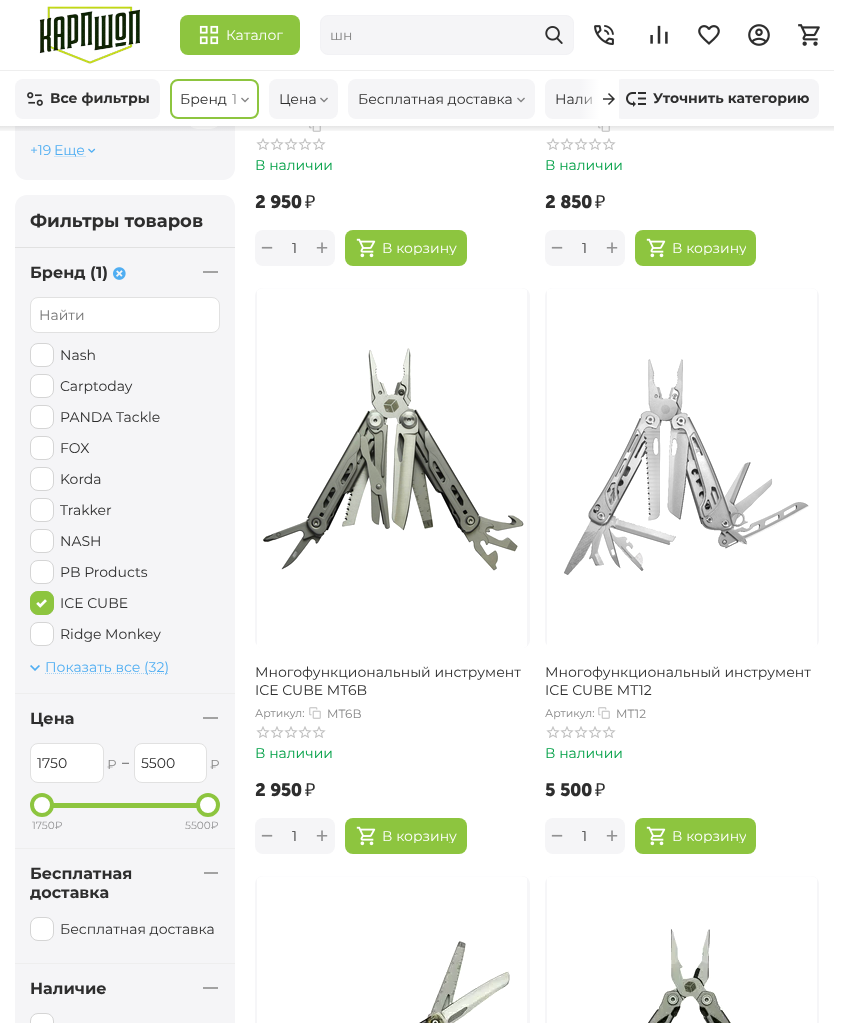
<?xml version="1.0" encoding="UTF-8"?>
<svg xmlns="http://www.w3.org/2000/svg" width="842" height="1023">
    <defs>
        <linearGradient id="g1" gradientUnits="userSpaceOnUse" x1="579" y1="99" x2="599" y2="99"><stop offset="0" stop-color="#FFFFFF" stop-opacity="0"/><stop offset="1" stop-color="#FFFFFF"/></linearGradient>
        <linearGradient id="g2" gradientUnits="userSpaceOnUse" x1="417" y1="126" x2="417" y2="133"><stop offset="0" stop-color="#000000" stop-opacity="0.1"/><stop offset="1" stop-color="#000000" stop-opacity="0"/></linearGradient>
        <clipPath id="clip1"><rect x="382" y="241" width="75" height="14"/></clipPath>
        <clipPath id="clip2"><rect x="672" y="241" width="74" height="14"/></clipPath>
        <clipPath id="clip3"><rect x="382" y="829" width="75" height="14"/></clipPath>
        <clipPath id="clip4"><rect x="672" y="829" width="74" height="14"/></clipPath>
    </defs>
    <rect width="100%" height="100%" fill="#FFFFFF"/>
    <path d="M 15 -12 H 235 V 168 C 235 174.5 229.5 180 223 180 H 27 C 20.5 180 15 174.5 15 168 Z" fill="#F5F5F7"/>
    <rect x="15" y="0" width="220" height="70" fill="#FFFFFF"/>
    <image x="39" y="6" width="101" height="58" href="img_01.png"/>
    <rect x="180" y="15" width="120" height="40" rx="8" fill="#8DC53F"/>
    <image x="199" y="25" width="20" height="20" href="img_02.png"/>
    <text x="226" y="40" font-family="Montserrat" font-size="14" font-weight="100" fill="#FFFFFF">Каталог</text>
    <rect x="320.5" y="15.5" width="253" height="39" rx="7.5" fill="#F5F5F7" stroke="#F2F2F5"/>
    <text x="330" y="40" font-family="Montserrat" font-size="14" font-weight="100" fill="#878787">шн</text>
    <image x="545" y="26" width="18" height="18" href="img_03.png"/>
    <image x="594" y="25" width="20" height="20" href="img_04.png"/>
    <image x="650" y="25" width="18" height="19" href="img_05.png"/>
    <image x="698" y="25" width="22" height="20" href="img_06.png"/>
    <image x="748" y="24" width="22" height="22" href="img_07.png"/>
    <image x="798" y="24" width="22" height="22" href="img_08.png"/>
    <rect x="188" y="110" width="32" height="19" rx="9.5" fill="#FFFFFF"/>
    <rect x="15" y="71" width="220" height="55" fill="#FFFFFF"/>
    <rect x="0" y="70" width="834" height="1" fill="#EEEEEE"/>
    <rect x="15" y="79" width="145" height="40" rx="8" fill="#F5F5F7"/>
    <image x="27" y="92" width="16" height="14" href="img_09.png"/>
    <text x="50" y="103" font-family="Montserrat" font-size="14" font-weight="700" fill="#2E2E2E">Все фильтры</text>
    <rect x="171" y="80" width="87" height="38" rx="7" fill="none" stroke="#8DC53F" stroke-width="2"/>
    <text x="180" y="104" font-family="Montserrat" font-size="14" font-weight="100" fill="#2E2E2E">Бренд</text>
    <text x="232" y="104" font-family="Montserrat" font-size="14" font-weight="100" fill="#878787">1</text>
    <image x="241" y="97" width="8" height="6" href="img_10.png"/>
    <rect x="269" y="79" width="69" height="40" rx="8" fill="#F5F5F7"/>
    <text x="279" y="104" font-family="Montserrat" font-size="14" font-weight="100" fill="#2E2E2E">Цена</text>
    <image x="320" y="97" width="8" height="6" href="img_11.png"/>
    <rect x="348" y="79" width="187" height="40" rx="8" fill="#F5F5F7"/>
    <text x="358" y="104" font-family="Montserrat" font-size="14" font-weight="100" fill="#2E2E2E">Бесплатная доставка</text>
    <image x="517" y="97" width="8" height="6" href="img_11.png"/>
    <path d="M 553 79 H 604 V 119 H 553 C 548.5 119 545 115.5 545 111 V 87 C 545 82.5 548.5 79 553 79 Z" fill="#F5F5F7"/>
    <text x="555" y="104" font-family="Montserrat" font-size="14" font-weight="100" fill="#2E2E2E">Нали</text>
    <rect x="614" y="79" width="205" height="40" rx="8" fill="#F5F5F7"/>
    <rect x="599" y="79" width="20" height="40" fill="#FFFFFF"/>
    <rect x="579" y="79" width="20" height="40" fill="url(#g1)"/>
    <image x="603" y="93" width="12" height="12" href="img_12.png"/>
    <image x="626" y="92" width="20" height="15" href="img_13.png"/>
    <text x="653" y="103" font-family="Montserrat" font-size="14" font-weight="700" fill="#2E2E2E">Уточнить категорию</text>
    <image x="309" y="126" width="12" height="6" href="img_18.png"/>
    <image x="598" y="126" width="12" height="6" href="img_18.png"/>
    <rect x="0" y="126" width="834" height="5" fill="url(#g2)"/>
    <text x="30" y="155" font-family="Montserrat" font-size="14" font-weight="100" fill="#50AEF2">+19</text>
    <path d="M 54.5 156.5 H 85.5" fill="none" stroke="#A3D2F5" stroke-dasharray="1 1"/>
    <text x="54" y="155" font-family="Montserrat" font-size="14" font-weight="100" fill="#50AEF2">Еще</text>
    <image x="88" y="148" width="8" height="5" href="img_14.png"/>
    <path d="M 27 195 H 223 C 229.5 195 235 200.5 235 207 V 248 H 15 V 207 C 15 200.5 20.5 195 27 195 Z" fill="#F5F5F7"/>
    <rect x="15" y="247" width="220" height="1" fill="#E1E1E1"/>
    <text x="30" y="227" font-family="Montserrat" font-size="18" font-weight="700" fill="#2E2E2E">Фильтры товаров</text>
    <rect x="15" y="248" width="220" height="775" fill="#F5F5F7"/>
    <text x="30" y="278" font-family="Montserrat" font-size="16" font-weight="700" fill="#2E2E2E">Бренд (1)</text>
    <image x="113" y="267" width="13" height="13" href="img_15.png"/>
    <rect x="203" y="271" width="15" height="2" fill="#A2A2A2"/>
    <rect x="30.5" y="297.5" width="189" height="35" rx="7.5" fill="#FFFFFF" stroke="#E1E1E1"/>
    <text x="39" y="320" font-family="Montserrat" font-size="14" font-weight="100" fill="#757575">Найти</text>
    <rect x="30.5" y="343.5" width="23" height="23" rx="7.5" fill="#FFFFFF" stroke="#D5D5D5"/>
    <text x="60" y="360" font-family="Montserrat" font-size="14" font-weight="100" fill="#2E2E2E">Nash</text>
    <rect x="30.5" y="374.5" width="23" height="23" rx="7.5" fill="#FFFFFF" stroke="#D5D5D5"/>
    <text x="60" y="391" font-family="Montserrat" font-size="14" font-weight="100" fill="#2E2E2E">Carptoday</text>
    <rect x="30.5" y="405.5" width="23" height="23" rx="7.5" fill="#FFFFFF" stroke="#D5D5D5"/>
    <text x="60" y="422" font-family="Montserrat" font-size="14" font-weight="100" fill="#2E2E2E">PANDA Tackle</text>
    <rect x="30.5" y="436.5" width="23" height="23" rx="7.5" fill="#FFFFFF" stroke="#D5D5D5"/>
    <text x="60" y="453" font-family="Montserrat" font-size="14" font-weight="100" fill="#2E2E2E">FOX</text>
    <rect x="30.5" y="467.5" width="23" height="23" rx="7.5" fill="#FFFFFF" stroke="#D5D5D5"/>
    <text x="60" y="484" font-family="Montserrat" font-size="14" font-weight="100" fill="#2E2E2E">Korda</text>
    <rect x="30.5" y="498.5" width="23" height="23" rx="7.5" fill="#FFFFFF" stroke="#D5D5D5"/>
    <text x="60" y="515" font-family="Montserrat" font-size="14" font-weight="100" fill="#2E2E2E">Trakker</text>
    <rect x="30.5" y="529.5" width="23" height="23" rx="7.5" fill="#FFFFFF" stroke="#D5D5D5"/>
    <text x="60" y="546" font-family="Montserrat" font-size="14" font-weight="100" fill="#2E2E2E">NASH</text>
    <rect x="30.5" y="560.5" width="23" height="23" rx="7.5" fill="#FFFFFF" stroke="#D5D5D5"/>
    <text x="60" y="577" font-family="Montserrat" font-size="14" font-weight="100" fill="#2E2E2E">PB Products</text>
    <rect x="30.5" y="591.5" width="23" height="23" rx="7.5" fill="none" stroke="#D5D5D5"/>
    <rect x="30.5" y="591.5" width="23" height="23" rx="7.5" fill="#8DC53F" stroke="#8DC53F"/>
    <image x="36" y="599" width="11" height="9" href="img_16.png"/>
    <text x="60" y="608" font-family="Montserrat" font-size="14" font-weight="100" fill="#2E2E2E">ICE CUBE</text>
    <rect x="30.5" y="622.5" width="23" height="23" rx="7.5" fill="#FFFFFF" stroke="#D5D5D5"/>
    <text x="60" y="639" font-family="Montserrat" font-size="14" font-weight="100" fill="#2E2E2E">Ridge Monkey</text>
    <image x="30" y="665" width="10" height="6" href="img_17.png"/>
    <path d="M 45 673.5 H 169" fill="none" stroke="#A3D2F5" stroke-dasharray="1 1"/>
    <text x="45" y="672" font-family="Montserrat" font-size="14" font-weight="100" fill="#50AEF2">Показать все (32)</text>
    <rect x="15" y="693" width="220" height="1" fill="#EEEEEE"/>
    <text x="30" y="724" font-family="Montserrat" font-size="16" font-weight="700" fill="#2E2E2E">Цена</text>
    <rect x="203" y="717" width="15" height="2" fill="#A2A2A2"/>
    <rect x="30.5" y="743.5" width="73" height="39" rx="7.5" fill="#FFFFFF" stroke="#E1E1E1"/>
    <text x="37" y="768" font-family="Montserrat" font-size="14" font-weight="100" fill="#2E2E2E">1750</text>
    <text x="107" y="769" font-family="Montserrat" font-size="13" font-weight="100" fill="#878787">₽</text>
    <text x="122" y="767" font-family="Montserrat" font-size="14" font-weight="100" fill="#2E2E2E">–</text>
    <rect x="134.5" y="743.5" width="72" height="39" rx="7.5" fill="#FFFFFF" stroke="#E1E1E1"/>
    <text x="141" y="768" font-family="Montserrat" font-size="14" font-weight="100" fill="#2E2E2E">5500</text>
    <text x="210" y="769" font-family="Montserrat" font-size="13" font-weight="100" fill="#878787">₽</text>
    <rect x="53" y="803" width="144" height="5" fill="#8DC53F"/>
    <circle cx="42" cy="805" r="10" fill="#FFFFFF" stroke="#8DC53F" stroke-width="4"/>
    <circle cx="208" cy="805" r="10" fill="#FFFFFF" stroke="#8DC53F" stroke-width="4"/>
    <text x="32" y="829" font-family="Montserrat" font-size="10.5" font-weight="100" fill="#929293">1750₽</text>
    <text x="185" y="829" font-family="Montserrat" font-size="10.5" font-weight="100" fill="#929293">5500₽</text>
    <rect x="15" y="848" width="220" height="1" fill="#EEEEEE"/>
    <text font-family="Montserrat" font-size="16" font-weight="700" fill="#2E2E2E">
        <tspan x="30" y="879">Бесплатная</tspan>
        <tspan x="30" y="898">доставка</tspan>
    </text>
    <rect x="204" y="872" width="14" height="2" fill="#A2A2A2"/>
    <rect x="30.5" y="917.5" width="23" height="23" rx="7.5" fill="#FFFFFF" stroke="#D5D5D5"/>
    <text x="60" y="934" font-family="Montserrat" font-size="14" font-weight="100" fill="#2E2E2E">Бесплатная доставка</text>
    <rect x="15" y="963" width="220" height="1" fill="#EEEEEE"/>
    <text x="30" y="994" font-family="Montserrat" font-size="16" font-weight="700" fill="#2E2E2E">Наличие</text>
    <rect x="203" y="987" width="15" height="2" fill="#A2A2A2"/>
    <rect x="30.5" y="1013.5" width="23" height="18" rx="7.5" fill="#FFFFFF" stroke="#D5D5D5"/>
    <image x="256" y="138" width="70" height="12" href="img_19.png"/>
    <text x="255" y="170" font-family="Montserrat" font-size="14" font-weight="100" fill="#00A046">В наличии</text>
    <text x="255" y="208" word-spacing="1" font-family="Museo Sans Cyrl" font-size="18" font-weight="700" letter-spacing="-0.5" fill="#2E2E2E">‍2 950‍</text>
    <text x="305" y="208" font-family="Noto Sans" font-size="18" letter-spacing="-0.5" fill="#2E2E2E">₽</text>
    <rect x="255" y="230" width="80" height="36" rx="8" fill="#F5F5F7"/>
    <text x="261" y="254" font-family="DejaVu Sans Mono" font-size="20" fill="#929293">−</text>
    <text x="292" y="253" font-family="Montserrat" font-size="14" font-weight="100" fill="#2E2E2E">1</text>
    <text x="316" y="254" font-family="DejaVu Sans Mono" font-size="20" fill="#929293">+</text>
    <rect x="345" y="230" width="122" height="36" rx="8" fill="#8DC53F"/>
    <image x="356" y="238" width="20" height="20" href="img_20.png"/>
    <g clip-path="url(#clip1)">
        <text x="382" y="253" font-family="Montserrat" font-size="14" font-weight="100" fill="#FFFFFF">В корзину</text>
    </g>
    <image x="546" y="138" width="70" height="12" href="img_19.png"/>
    <text x="545" y="170" font-family="Montserrat" font-size="14" font-weight="100" fill="#00A046">В наличии</text>
    <text x="545" y="208" word-spacing="1" font-family="Museo Sans Cyrl" font-size="18" font-weight="700" letter-spacing="-0.5" fill="#2E2E2E">‍2 850‍</text>
    <text x="595" y="208" font-family="Noto Sans" font-size="18" letter-spacing="-0.5" fill="#2E2E2E">₽</text>
    <rect x="545" y="230" width="80" height="36" rx="8" fill="#F5F5F7"/>
    <text x="551" y="254" font-family="DejaVu Sans Mono" font-size="20" fill="#929293">−</text>
    <text x="582" y="253" font-family="Montserrat" font-size="14" font-weight="100" fill="#2E2E2E">1</text>
    <text x="606" y="254" font-family="DejaVu Sans Mono" font-size="20" fill="#929293">+</text>
    <rect x="635" y="230" width="121" height="36" rx="8" fill="#8DC53F"/>
    <image x="646" y="238" width="20" height="20" href="img_20.png"/>
    <g clip-path="url(#clip2)">
        <text x="672" y="253" font-family="Montserrat" font-size="14" font-weight="100" fill="#FFFFFF">В корзину</text>
    </g>
    <rect x="255" y="288" width="275" height="360" rx="8" fill="#F6F6F8"/>
    <image x="257" y="288" width="270" height="360" href="img_21.png"/>
    <text font-family="Montserrat" font-size="14" font-weight="100" fill="#2E2E2E">
        <tspan x="255" y="677">Многофункциональный инструмент</tspan>
        <tspan x="255" y="695">ICE CUBE MT6B</tspan>
    </text>
    <text x="255" y="717" font-family="Montserrat" font-size="11" font-weight="100" fill="#878787">Артикул:</text>
    <image x="309" y="707" width="12" height="12" href="img_22.png"/>
    <text x="327" y="718" font-family="Montserrat" font-size="12" font-weight="100" fill="#878787">MT6B</text>
    <image x="256" y="726" width="70" height="12" href="img_19.png"/>
    <text x="255" y="758" font-family="Montserrat" font-size="14" font-weight="100" fill="#00A046">В наличии</text>
    <text x="255" y="796" word-spacing="1" font-family="Museo Sans Cyrl" font-size="18" font-weight="700" letter-spacing="-0.5" fill="#2E2E2E">‍2 950‍</text>
    <text x="305" y="796" font-family="Noto Sans" font-size="18" letter-spacing="-0.5" fill="#2E2E2E">₽</text>
    <rect x="255" y="818" width="80" height="36" rx="8" fill="#F5F5F7"/>
    <text x="261" y="842" font-family="DejaVu Sans Mono" font-size="20" fill="#929293">−</text>
    <text x="292" y="841" font-family="Montserrat" font-size="14" font-weight="100" fill="#2E2E2E">1</text>
    <text x="316" y="842" font-family="DejaVu Sans Mono" font-size="20" fill="#929293">+</text>
    <rect x="345" y="818" width="122" height="36" rx="8" fill="#8DC53F"/>
    <image x="356" y="826" width="20" height="20" href="img_20.png"/>
    <g clip-path="url(#clip3)">
        <text x="382" y="841" font-family="Montserrat" font-size="14" font-weight="100" fill="#FFFFFF">В корзину</text>
    </g>
    <rect x="545" y="288" width="274" height="360" rx="8" fill="#F6F6F8"/>
    <image x="547" y="288" width="270" height="360" href="img_23.png"/>
    <text font-family="Montserrat" font-size="14" font-weight="100" fill="#2E2E2E">
        <tspan x="545" y="677">Многофункциональный инструмент</tspan>
        <tspan x="545" y="695">ICE CUBE MT12</tspan>
    </text>
    <text x="545" y="717" font-family="Montserrat" font-size="11" font-weight="100" fill="#878787">Артикул:</text>
    <image x="598" y="707" width="12" height="12" href="img_22.png"/>
    <text x="616" y="718" font-family="Montserrat" font-size="12" font-weight="100" fill="#878787">MT12</text>
    <image x="546" y="726" width="70" height="12" href="img_19.png"/>
    <text x="545" y="758" font-family="Montserrat" font-size="14" font-weight="100" fill="#00A046">В наличии</text>
    <text x="545" y="796" word-spacing="1" font-family="Museo Sans Cyrl" font-size="18" font-weight="700" letter-spacing="-0.5" fill="#2E2E2E">‍5 500‍</text>
    <text x="595" y="796" font-family="Noto Sans" font-size="18" letter-spacing="-0.5" fill="#2E2E2E">₽</text>
    <rect x="545" y="818" width="80" height="36" rx="8" fill="#F5F5F7"/>
    <text x="551" y="842" font-family="DejaVu Sans Mono" font-size="20" fill="#929293">−</text>
    <text x="582" y="841" font-family="Montserrat" font-size="14" font-weight="100" fill="#2E2E2E">1</text>
    <text x="606" y="842" font-family="DejaVu Sans Mono" font-size="20" fill="#929293">+</text>
    <rect x="635" y="818" width="121" height="36" rx="8" fill="#8DC53F"/>
    <image x="646" y="826" width="20" height="20" href="img_20.png"/>
    <g clip-path="url(#clip4)">
        <text x="672" y="841" font-family="Montserrat" font-size="14" font-weight="100" fill="#FFFFFF">В корзину</text>
    </g>
    <rect x="255" y="876" width="275" height="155" rx="8" fill="#F6F6F8"/>
    <image x="257" y="876" width="270" height="147" href="img_24.png"/>
    <rect x="545" y="876" width="274" height="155" rx="8" fill="#F6F6F8"/>
    <image x="547" y="876" width="270" height="147" href="img_25.png"/>
</svg>
